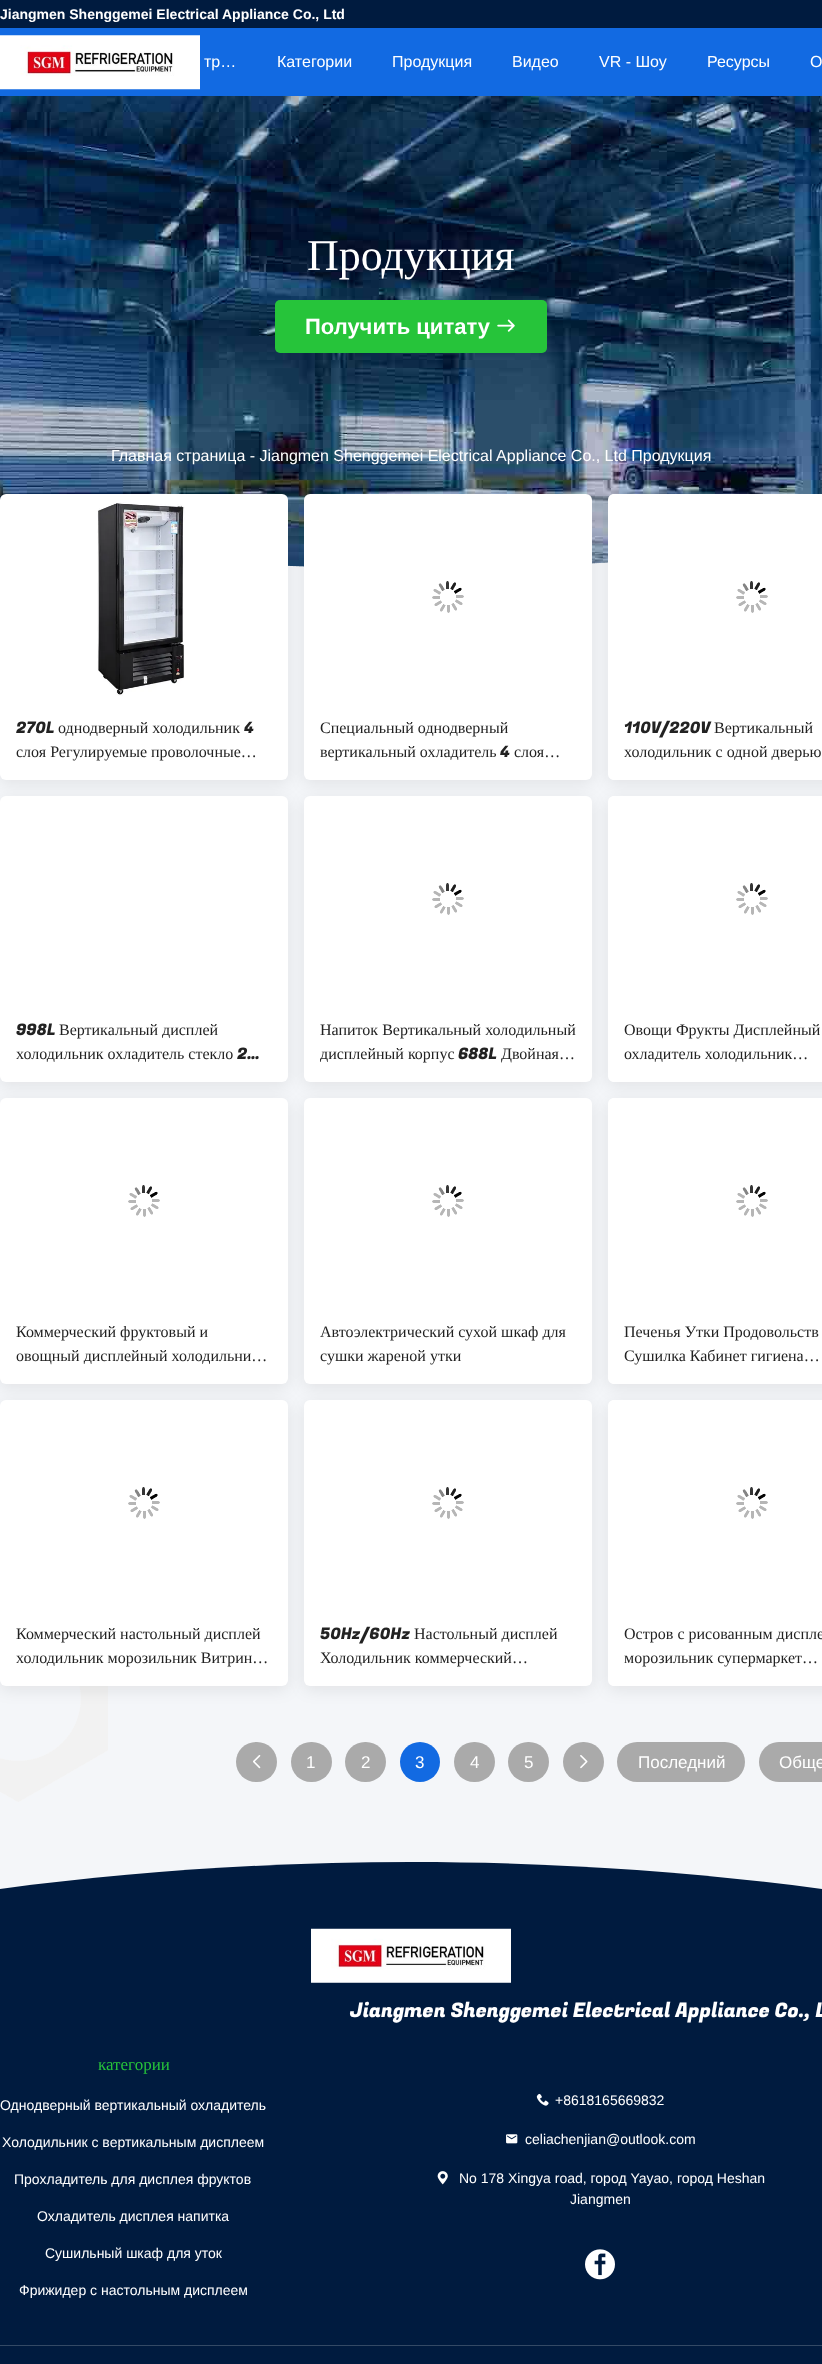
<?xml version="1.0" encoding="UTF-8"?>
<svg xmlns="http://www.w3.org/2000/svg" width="822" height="2364">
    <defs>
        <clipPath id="clip1"><rect x="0" y="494" width="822" height="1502"/></clipPath>
        <filter id="blur1" x="-50%" y="-200%" width="200%" height="500%"><feGaussianBlur stdDeviation="8"/></filter>
    </defs>
    <rect width="100%" height="100%" fill="#F4F6F9"/>
    <rect x="0" y="0" width="822" height="28" fill="#001B3F"/>
    <text x="0" y="19" font-family="Liberation Sans" font-size="14" font-weight="700" fill="#FFFFFF">Jiangmen Shenggemei Electrical Appliance Co., Ltd</text>
    <rect x="0" y="28" width="822" height="68" fill="#126AE2"/>
    <image x="0" y="35" width="200" height="55" href="img_01.png"/>
    <text x="204" y="67" font-family="Liberation Sans" font-size="16" fill="#FFFFFF">тр…</text>
    <text x="277" y="67" font-family="Liberation Sans" font-size="16" fill="#FFFFFF">Категории</text>
    <text x="392" y="67" font-family="Liberation Sans" font-size="16" fill="#FFFFFF">Продукция</text>
    <text x="512" y="67" font-family="Liberation Sans" font-size="16" fill="#FFFFFF">Видео</text>
    <text x="599" y="67" font-family="Liberation Sans" font-size="16" fill="#FFFFFF">VR - Шоу</text>
    <text x="707" y="67" font-family="Liberation Sans" font-size="16" fill="#FFFFFF">Ресурсы</text>
    <text x="810" y="67" font-family="Liberation Sans" font-size="16" fill="#FFFFFF">О</text>
    <image x="0" y="96" width="822" height="471" href="img_02.png"/>
    <text x="307" y="270" font-family="Liberation Serif" font-size="44" fill="#FFFFFF">Продукция</text>
    <rect x="275" y="300" width="272" height="53" rx="5" fill="#26C43A"/>
    <text x="305" y="334" font-family="Liberation Sans" font-size="22" font-weight="700" fill="#FFFFFF">Получить цитату</text>
    <image x="497" y="319" width="18" height="13" href="img_03.png"/>
    <text x="111" y="461" font-family="Liberation Sans" font-size="16" fill="#FFFFFF">Главная страница - Jiangmen Shenggemei Electrical Appliance Co., Ltd Продукция</text>
    <image x="288" y="562" width="320" height="6" href="img_04.png"/>
    <g clip-path="url(#clip1)">
        <rect x="0" y="498" width="288" height="286" rx="6" fill="#000000" fill-opacity="0.08" filter="url(#blur1)"/>
    </g>
    <rect x="0" y="494" width="288" height="286" rx="6" fill="#FFFFFF"/>
    <image x="97" y="502" width="88" height="194" href="img_05.png"/>
    <text x="16" y="733" font-family="Fugaz One" font-size="16" fill="#222222">270L</text>
    <text x="58" y="733" font-family="Liberation Serif" font-size="16" fill="#222222">однодверный холодильник</text>
    <text x="244" y="733" font-family="Fugaz One" font-size="16" fill="#222222">4</text>
    <text x="16" y="757" font-family="Liberation Serif" font-size="16" fill="#222222">слоя Регулируемые проволочные…</text>
    <g clip-path="url(#clip1)">
        <rect x="304" y="498" width="288" height="286" rx="6" fill="#000000" fill-opacity="0.08" filter="url(#blur1)"/>
    </g>
    <rect x="304" y="494" width="288" height="286" rx="6" fill="#FFFFFF"/>
    <image x="432" y="581" width="32" height="32" href="img_06.png"/>
    <text font-family="Liberation Serif" font-size="16" fill="#222222">
        <tspan x="320" y="733">Специальный однодверный</tspan>
        <tspan x="320" y="757">вертикальный охладитель</tspan>
    </text>
    <text x="500" y="757" font-family="Fugaz One" font-size="16" fill="#222222">4</text>
    <text x="514" y="757" font-family="Liberation Serif" font-size="16" fill="#222222">слоя…</text>
    <g clip-path="url(#clip1)">
        <rect x="608" y="498" width="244" height="286" rx="6" fill="#000000" fill-opacity="0.08" filter="url(#blur1)"/>
    </g>
    <path d="M 614 494 H 822 V 780 H 614 C 610.5 780 608 777.5 608 774 V 500 C 608 496.5 610.5 494 614 494 Z" fill="#FFFFFF"/>
    <image x="736" y="581" width="32" height="32" href="img_06.png"/>
    <text x="624" y="733" font-family="Fugaz One" font-size="16" fill="#222222">110V/220V</text>
    <text x="714" y="733" font-family="Liberation Serif" font-size="16" fill="#222222">Вертикальный</text>
    <text x="624" y="757" font-family="Liberation Serif" font-size="16" fill="#222222">холодильник с одной дверью</text>
    <rect x="0" y="800" width="288" height="286" rx="6" fill="#000000" fill-opacity="0.08" filter="url(#blur1)"/>
    <rect x="0" y="796" width="288" height="286" rx="6" fill="#FFFFFF"/>
    <text x="16" y="1035" font-family="Fugaz One" font-size="16" fill="#222222">998L</text>
    <text x="59" y="1035" font-family="Liberation Serif" font-size="16" fill="#222222">Вертикальный дисплей</text>
    <text x="16" y="1059" font-family="Liberation Serif" font-size="16" fill="#222222">холодильник охладитель стекло</text>
    <text x="237" y="1059" font-family="Fugaz One" font-size="16" fill="#222222">2…</text>
    <rect x="304" y="800" width="288" height="286" rx="6" fill="#000000" fill-opacity="0.08" filter="url(#blur1)"/>
    <rect x="304" y="796" width="288" height="286" rx="6" fill="#FFFFFF"/>
    <image x="432" y="883" width="32" height="32" href="img_06.png"/>
    <text font-family="Liberation Serif" font-size="16" fill="#222222">
        <tspan x="320" y="1035">Напиток Вертикальный холодильный</tspan>
        <tspan x="320" y="1059">дисплейный корпус</tspan>
    </text>
    <text x="458" y="1059" font-family="Fugaz One" font-size="16" fill="#222222">688L</text>
    <text x="501" y="1059" font-family="Liberation Serif" font-size="16" fill="#222222">Двойная…</text>
    <rect x="608" y="800" width="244" height="286" rx="6" fill="#000000" fill-opacity="0.08" filter="url(#blur1)"/>
    <path d="M 614 796 H 822 V 1082 H 614 C 610.5 1082 608 1079.5 608 1076 V 802 C 608 798.5 610.5 796 614 796 Z" fill="#FFFFFF"/>
    <image x="736" y="883" width="32" height="32" href="img_06.png"/>
    <text font-family="Liberation Serif" font-size="16" fill="#222222">
        <tspan x="624" y="1035">Овощи Фрукты Дисплейный</tspan>
        <tspan x="624" y="1059">охладитель холодильник…</tspan>
    </text>
    <rect x="0" y="1102" width="288" height="286" rx="6" fill="#000000" fill-opacity="0.08" filter="url(#blur1)"/>
    <rect x="0" y="1098" width="288" height="286" rx="6" fill="#FFFFFF"/>
    <image x="128" y="1185" width="32" height="32" href="img_06.png"/>
    <text font-family="Liberation Serif" font-size="16" fill="#222222">
        <tspan x="16" y="1337">Коммерческий фруктовый и</tspan>
        <tspan x="16" y="1361">овощный дисплейный холодильни…</tspan>
    </text>
    <rect x="304" y="1102" width="288" height="286" rx="6" fill="#000000" fill-opacity="0.08" filter="url(#blur1)"/>
    <rect x="304" y="1098" width="288" height="286" rx="6" fill="#FFFFFF"/>
    <image x="432" y="1185" width="32" height="32" href="img_06.png"/>
    <text font-family="Liberation Serif" font-size="16" fill="#222222">
        <tspan x="320" y="1337">Автоэлектрический сухой шкаф для</tspan>
        <tspan x="320" y="1361">сушки жареной утки</tspan>
    </text>
    <rect x="608" y="1102" width="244" height="286" rx="6" fill="#000000" fill-opacity="0.08" filter="url(#blur1)"/>
    <path d="M 614 1098 H 822 V 1384 H 614 C 610.5 1384 608 1381.5 608 1378 V 1104 C 608 1100.5 610.5 1098 614 1098 Z" fill="#FFFFFF"/>
    <image x="736" y="1185" width="32" height="32" href="img_06.png"/>
    <text font-family="Liberation Serif" font-size="16" fill="#222222">
        <tspan x="624" y="1337">Печенья Утки Продовольств</tspan>
        <tspan x="624" y="1361">Сушилка Кабинет гигиена…</tspan>
    </text>
    <image x="0" y="1686" width="108" height="116" href="img_09.png"/>
    <rect x="0" y="1404" width="288" height="286" rx="6" fill="#000000" fill-opacity="0.08" filter="url(#blur1)"/>
    <rect x="0" y="1400" width="288" height="286" rx="6" fill="#FFFFFF"/>
    <image x="128" y="1487" width="32" height="32" href="img_06.png"/>
    <text font-family="Liberation Serif" font-size="16" fill="#222222">
        <tspan x="16" y="1639">Коммерческий настольный дисплей</tspan>
        <tspan x="16" y="1663">холодильник морозильник Витрин…</tspan>
    </text>
    <rect x="304" y="1404" width="288" height="286" rx="6" fill="#000000" fill-opacity="0.08" filter="url(#blur1)"/>
    <rect x="304" y="1400" width="288" height="286" rx="6" fill="#FFFFFF"/>
    <image x="432" y="1487" width="32" height="32" href="img_06.png"/>
    <text x="320" y="1639" font-family="Fugaz One" font-size="16" fill="#222222">50Hz/60Hz</text>
    <text x="414" y="1639" font-family="Liberation Serif" font-size="16" fill="#222222">Настольный дисплей</text>
    <text x="320" y="1663" font-family="Liberation Serif" font-size="16" fill="#222222">Холодильник коммерческий…</text>
    <rect x="608" y="1404" width="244" height="286" rx="6" fill="#000000" fill-opacity="0.08" filter="url(#blur1)"/>
    <path d="M 614 1400 H 822 V 1686 H 614 C 610.5 1686 608 1683.5 608 1680 V 1406 C 608 1402.5 610.5 1400 614 1400 Z" fill="#FFFFFF"/>
    <image x="736" y="1487" width="32" height="32" href="img_06.png"/>
    <text font-family="Liberation Serif" font-size="16" fill="#222222">
        <tspan x="624" y="1639">Остров с рисованным диспле</tspan>
        <tspan x="624" y="1663">морозильник супермаркет…</tspan>
    </text>
    <rect x="236" y="1742" width="41" height="40" rx="20" fill="#AAAAAA"/>
    <image x="253" y="1755" width="8" height="14" href="img_07.png"/>
    <rect x="291" y="1742" width="41" height="40" rx="20" fill="#AAAAAA"/>
    <text x="306" y="1768" font-family="Liberation Sans" font-size="17" fill="#FFFFFF">1</text>
    <rect x="345" y="1742" width="41" height="40" rx="20" fill="#AAAAAA"/>
    <text x="361" y="1768" font-family="Liberation Sans" font-size="17" fill="#FFFFFF">2</text>
    <circle cx="420" cy="1762" r="20" fill="#126AE2"/>
    <text x="415" y="1768" font-family="Liberation Sans" font-size="17" fill="#FFFFFF">3</text>
    <rect x="454" y="1742" width="41" height="40" rx="20" fill="#AAAAAA"/>
    <text x="470" y="1768" font-family="Liberation Sans" font-size="17" fill="#FFFFFF">4</text>
    <rect x="508" y="1742" width="41" height="40" rx="20" fill="#AAAAAA"/>
    <text x="524" y="1768" font-family="Liberation Sans" font-size="17" fill="#FFFFFF">5</text>
    <rect x="563" y="1742" width="41" height="40" rx="20" fill="#AAAAAA"/>
    <image x="580" y="1755" width="8" height="14" href="img_08.png"/>
    <rect x="617" y="1742" width="128" height="40" rx="20" fill="#AAAAAA"/>
    <text x="638" y="1768" font-family="Liberation Sans" font-size="17" fill="#FFFFFF">Последний</text>
    <path d="M 779 1742 H 822 V 1782 H 779 C 768 1782 759 1773 759 1762 C 759 1751 768 1742 779 1742 Z" fill="#AAAAAA"/>
    <text x="779" y="1768" font-family="Liberation Sans" font-size="17" fill="#FFFFFF">Обще</text>
    <path d="M 411 1862 C 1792 1862 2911 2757 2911 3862 H -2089 C -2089 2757 -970 1862 411 1862 Z" fill="#001B3F"/>
    <image x="311" y="1928" width="200" height="55" href="img_10.png"/>
    <text x="350" y="2017" font-family="Fugaz One" font-size="20" fill="#FFFFFF">Jiangmen Shenggemei Electrical Appliance Co., L</text>
    <text x="98" y="2070" font-family="Liberation Serif" font-size="17" fill="#26C43A">категории</text>
    <text x="0" y="2110" font-family="Liberation Sans" font-size="14" fill="#FFFFFF">Однодверный вертикальный охладитель</text>
    <text x="2" y="2147" font-family="Liberation Sans" font-size="14" fill="#FFFFFF">Холодильник с вертикальным дисплеем</text>
    <text x="14" y="2184" font-family="Liberation Sans" font-size="14" fill="#FFFFFF">Прохладитель для дисплея фруктов</text>
    <text x="37" y="2221" font-family="Liberation Sans" font-size="14" fill="#FFFFFF">Охладитель дисплея напитка</text>
    <text x="45" y="2258" font-family="Liberation Sans" font-size="14" fill="#FFFFFF">Сушильный шкаф для уток</text>
    <text x="19" y="2295" font-family="Liberation Sans" font-size="14" fill="#FFFFFF">Фрижидер с настольным дисплеем</text>
    <image x="536" y="2093" width="13" height="13" href="img_11.png"/>
    <text x="555" y="2105" font-family="Liberation Sans" font-size="14" fill="#FFFFFF">+8618165669832</text>
    <image x="506" y="2134" width="12" height="10" href="img_12.png"/>
    <text x="525" y="2144" font-family="Liberation Sans" font-size="14" fill="#FFFFFF">celiachenjian@outlook.com</text>
    <image x="437" y="2171" width="11" height="14" href="img_13.png"/>
    <text x="459" y="2183" font-family="Liberation Sans" font-size="14" fill="#FFFFFF">No 178 Xingya road, город Yayao, город Heshan</text>
    <text x="570" y="2204" font-family="Liberation Sans" font-size="14" fill="#FFFFFF">Jiangmen</text>
    <image x="585" y="2249" width="30" height="31" href="img_14.png"/>
    <rect x="0" y="2345" width="822" height="1" fill="#334965"/>
</svg>
